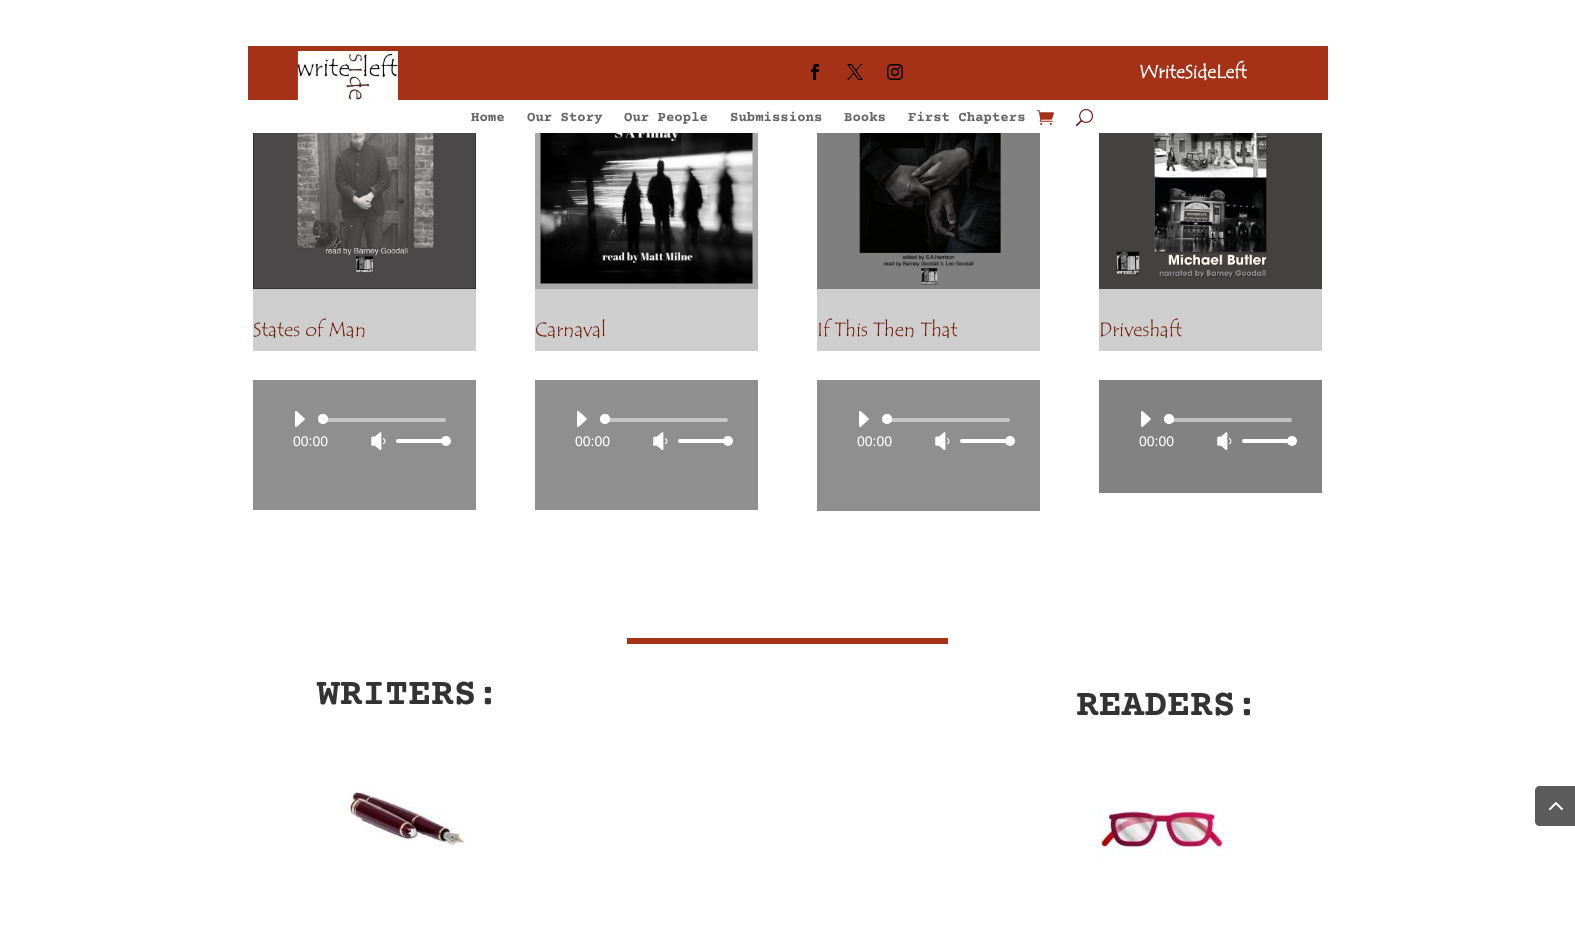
<?xml version="1.0" encoding="UTF-8"?>
<svg xmlns="http://www.w3.org/2000/svg" width="1575" height="951">
    <rect width="100%" height="100%" fill="#FFFFFF"/>
    <rect x="248" y="46" width="1080" height="54" fill="#A53117"/>
    <image x="297" y="51" width="101" height="49" href="img_01.png"/>
    <image x="811" y="64" width="8" height="16" href="img_02.png"/>
    <image x="847" y="64" width="16" height="16" href="img_03.png"/>
    <image x="887" y="64" width="16" height="16" href="img_04.png"/>
    <text x="1139" y="78" font-family="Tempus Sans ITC" font-size="19" font-weight="700" fill="#FFFFFF">WriteSideLeft</text>
    <text x="471" y="121" font-family="Courier Prime" font-size="14" font-weight="700" fill="#666666">Home</text>
    <text x="527" y="121" font-family="Courier Prime" font-size="14" font-weight="700" fill="#666666">Our Story</text>
    <text x="624" y="121" font-family="Courier Prime" font-size="14" font-weight="700" fill="#666666">Our People</text>
    <text x="730" y="121" font-family="Courier Prime" font-size="14" font-weight="700" fill="#666666">Submissions</text>
    <text x="844" y="121" font-family="Courier Prime" font-size="14" font-weight="700" fill="#666666">Books</text>
    <text x="908" y="121" font-family="Courier Prime" font-size="14" font-weight="700" fill="#666666">First Chapters</text>
    <image x="1037" y="110" width="17" height="15" href="img_05.png"/>
    <image x="1076" y="109" width="17" height="18" href="img_06.png"/>
    <rect x="253" y="289" width="223" height="62" fill="#CECECE"/>
    <image x="253" y="133" width="223" height="156" href="img_07.png"/>
    <text x="253" y="336" font-family="Tempus Sans ITC" font-size="20" fill="#701A04">States of Man</text>
    <rect x="253" y="380" width="223" height="130" fill="#8F8F8F"/>
    <image x="295" y="411" width="10" height="16" href="img_08.png"/>
    <rect x="325" y="418" width="121" height="4" rx="2" fill="#C7C7C7"/>
    <circle cx="323" cy="419" r="5" fill="#FFFFFF" fill-opacity="0.9"/>
    <circle cx="323" cy="419" r="3" fill="none" stroke="#FFFFFF" stroke-opacity="0.9" stroke-width="4"/>
    <text x="293" y="446" font-family="Liberation Sans" font-size="14" fill="#FFFFFF">00:00</text>
    <image x="371" y="432" width="15" height="18" href="img_09.png"/>
    <rect x="396" y="439" width="50" height="4" rx="2" fill="#FFFFFF"/>
    <circle cx="446" cy="441" r="5" fill="#FFFFFF"/>
    <rect x="535" y="289" width="223" height="62" fill="#CECECE"/>
    <image x="535" y="133" width="223" height="156" href="img_10.png"/>
    <text x="535" y="336" font-family="Tempus Sans ITC" font-size="20" fill="#701A04">Carnaval</text>
    <rect x="535" y="380" width="223" height="130" fill="#8F8F8F"/>
    <image x="577" y="411" width="10" height="16" href="img_08.png"/>
    <rect x="607" y="418" width="121" height="4" rx="2" fill="#C7C7C7"/>
    <circle cx="605" cy="419" r="5" fill="#FFFFFF" fill-opacity="0.9"/>
    <circle cx="605" cy="419" r="3" fill="none" stroke="#FFFFFF" stroke-opacity="0.9" stroke-width="4"/>
    <text x="575" y="446" font-family="Liberation Sans" font-size="14" fill="#FFFFFF">00:00</text>
    <image x="653" y="432" width="15" height="18" href="img_09.png"/>
    <rect x="678" y="439" width="50" height="4" rx="2" fill="#FFFFFF"/>
    <circle cx="728" cy="441" r="5" fill="#FFFFFF"/>
    <rect x="817" y="289" width="223" height="62" fill="#CECECE"/>
    <image x="817" y="133" width="223" height="156" href="img_11.png"/>
    <text x="817" y="336" font-family="Tempus Sans ITC" font-size="20" fill="#701A04">If This Then That</text>
    <rect x="817" y="380" width="223" height="131" fill="#8F8F8F"/>
    <image x="859" y="411" width="10" height="16" href="img_08.png"/>
    <rect x="889" y="418" width="121" height="4" rx="2" fill="#C7C7C7"/>
    <circle cx="887" cy="419" r="5" fill="#FFFFFF" fill-opacity="0.9"/>
    <circle cx="887" cy="419" r="3" fill="none" stroke="#FFFFFF" stroke-opacity="0.9" stroke-width="4"/>
    <text x="857" y="446" font-family="Liberation Sans" font-size="14" fill="#FFFFFF">00:00</text>
    <image x="935" y="432" width="15" height="18" href="img_09.png"/>
    <rect x="960" y="439" width="50" height="4" rx="2" fill="#FFFFFF"/>
    <circle cx="1010" cy="441" r="5" fill="#FFFFFF"/>
    <rect x="1099" y="289" width="223" height="62" fill="#CECECE"/>
    <image x="1099" y="133" width="223" height="156" href="img_12.png"/>
    <text x="1099" y="336" font-family="Tempus Sans ITC" font-size="20" fill="#701A04">Driveshaft</text>
    <rect x="1099" y="380" width="223" height="113" fill="#828282"/>
    <image x="1141" y="411" width="10" height="16" href="img_13.png"/>
    <rect x="1171" y="418" width="121" height="4" rx="2" fill="#C1C1C1"/>
    <circle cx="1169" cy="419" r="5" fill="#FFFFFF" fill-opacity="0.9"/>
    <circle cx="1169" cy="419" r="3" fill="none" stroke="#FFFFFF" stroke-opacity="0.9" stroke-width="4"/>
    <text x="1139" y="446" font-family="Liberation Sans" font-size="14" fill="#FFFFFF">00:00</text>
    <image x="1217" y="432" width="15" height="18" href="img_14.png"/>
    <rect x="1242" y="439" width="50" height="4" rx="2" fill="#FFFFFF"/>
    <circle cx="1292" cy="441" r="5" fill="#FFFFFF"/>
    <rect x="627" y="638" width="321" height="6" fill="#A53117"/>
    <text x="317" y="704" font-family="Courier Prime" font-size="38" font-weight="700" fill="#333333">WRITERS:</text>
    <image x="343" y="790" width="123" height="56" href="img_15.png"/>
    <text x="1076" y="715" font-family="Courier Prime" font-size="38" font-weight="700" fill="#333333">READERS:</text>
    <image x="1097" y="809" width="129" height="48" href="img_16.png"/>
    <path d="M 1540 786 H 1575 V 826 H 1540 C 1537 826 1535 824 1535 821 V 791 C 1535 788 1537 786 1540 786 Z" fill="#999999"/>
    <image x="1549" y="802" width="14" height="8" href="img_17.png"/>
    <path d="M 1540 786 H 1575 V 826 H 1540 C 1537 826 1535 824 1535 821 V 791 C 1535 788 1537 786 1540 786 Z" fill="#000000" fill-opacity="0.4"/>
    <image x="1548" y="802" width="15" height="9" href="img_18.png"/>
</svg>
